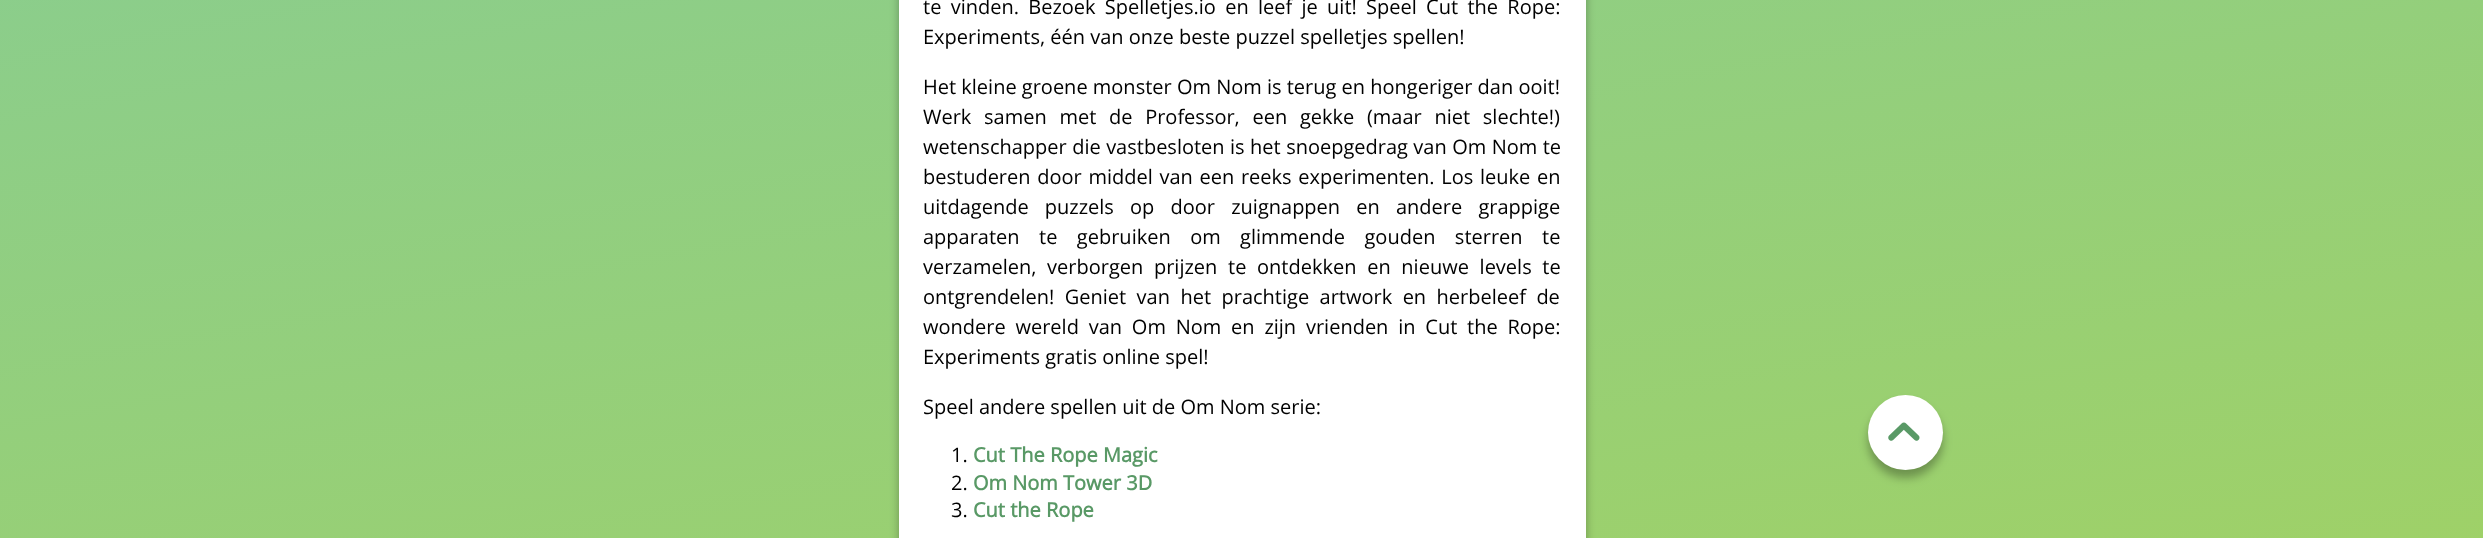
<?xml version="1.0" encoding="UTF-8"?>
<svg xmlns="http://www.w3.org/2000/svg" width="2483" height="538">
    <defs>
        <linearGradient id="g1" gradientUnits="userSpaceOnUse" x1="945" y1="-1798" x2="1539" y2="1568"><stop offset="0" stop-color="#6CC8C5"/><stop offset="0.85" stop-color="#A5D25C"/><stop offset="1" stop-color="#5F7E2A"/></linearGradient>
        <filter id="blur1" x="-50%" y="-200%" width="200%" height="500%"><feGaussianBlur stdDeviation="5"/></filter>
    </defs>
    <rect width="100%" height="100%" fill="#FFFFFF"/>
    <rect x="0" y="0" width="2483" height="538" fill="url(#g1)"/>
    <rect x="899" y="-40" width="687" height="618" rx="25" fill="#000000" fill-opacity="0.3" filter="url(#blur1)"/>
    <rect x="899" y="0" width="687" height="538" fill="#FFFFFF"/>
    <text font-family="Open Sans" font-size="20" fill="#000000">
        <tspan x="923" y="14" word-spacing="4.1">te vinden. Bezoek Spelletjes.io en leef je uit! Speel Cut the Rope:</tspan>
        <tspan x="923" y="44">Experiments, één van onze beste puzzel spelletjes spellen!</tspan>
    </text>
    <text font-family="Open Sans" font-size="20" fill="#000000">
        <tspan x="923" y="94">Het kleine groene monster Om Nom is terug en hongeriger dan ooit!</tspan>
        <tspan x="923" y="124" word-spacing="7.5">Werk samen met de Professor, een gekke (maar niet slechte!)</tspan>
        <tspan x="923" y="154" word-spacing="0.25">wetenschapper die vastbesloten is het snoepgedrag van Om Nom te</tspan>
        <tspan x="923" y="184" word-spacing="1.5">bestuderen door middel van een reeks experimenten. Los leuke en</tspan>
        <tspan x="923" y="214" word-spacing="11">uitdagende puzzels op door zuignappen en andere grappige</tspan>
        <tspan x="923" y="244" word-spacing="14.25">apparaten te gebruiken om glimmende gouden sterren te</tspan>
        <tspan x="923" y="274" word-spacing="5.5">verzamelen, verborgen prijzen te ontdekken en nieuwe levels te</tspan>
        <tspan x="923" y="304" word-spacing="5.25">ontgrendelen! Geniet van het prachtige artwork en herbeleef de</tspan>
        <tspan x="923" y="334" word-spacing="4.6">wondere wereld van Om Nom en zijn vrienden in Cut the Rope:</tspan>
        <tspan x="923" y="364">Experiments gratis online spel!</tspan>
    </text>
    <text x="923" y="414" font-family="Open Sans" font-size="20" fill="#000000">Speel andere spellen uit de Om Nom serie:</text>
    <text x="951" y="462" font-family="Open Sans" font-size="20" fill="#000000">1.</text>
    <text x="973" y="462" font-family="Open Sans" font-size="20" font-weight="700" fill="#599966">Cut The Rope Magic</text>
    <text x="951" y="490" font-family="Open Sans" font-size="20" fill="#000000">2.</text>
    <text x="973" y="490" font-family="Open Sans" font-size="20" font-weight="700" fill="#599966">Om Nom Tower 3D</text>
    <text x="951" y="517" font-family="Open Sans" font-size="20" fill="#000000">3.</text>
    <text x="973" y="517" font-family="Open Sans" font-size="20" font-weight="700" fill="#599966">Cut the Rope</text>
    <rect x="1868" y="403" width="75" height="75" rx="37.5" fill="#000000" fill-opacity="0.3" filter="url(#blur1)"/>
    <circle cx="1905.5" cy="432.5" r="37.5" fill="#FFFFFF"/>
    <image x="1888" y="422" width="32" height="19" href="img_01.png"/>
</svg>
